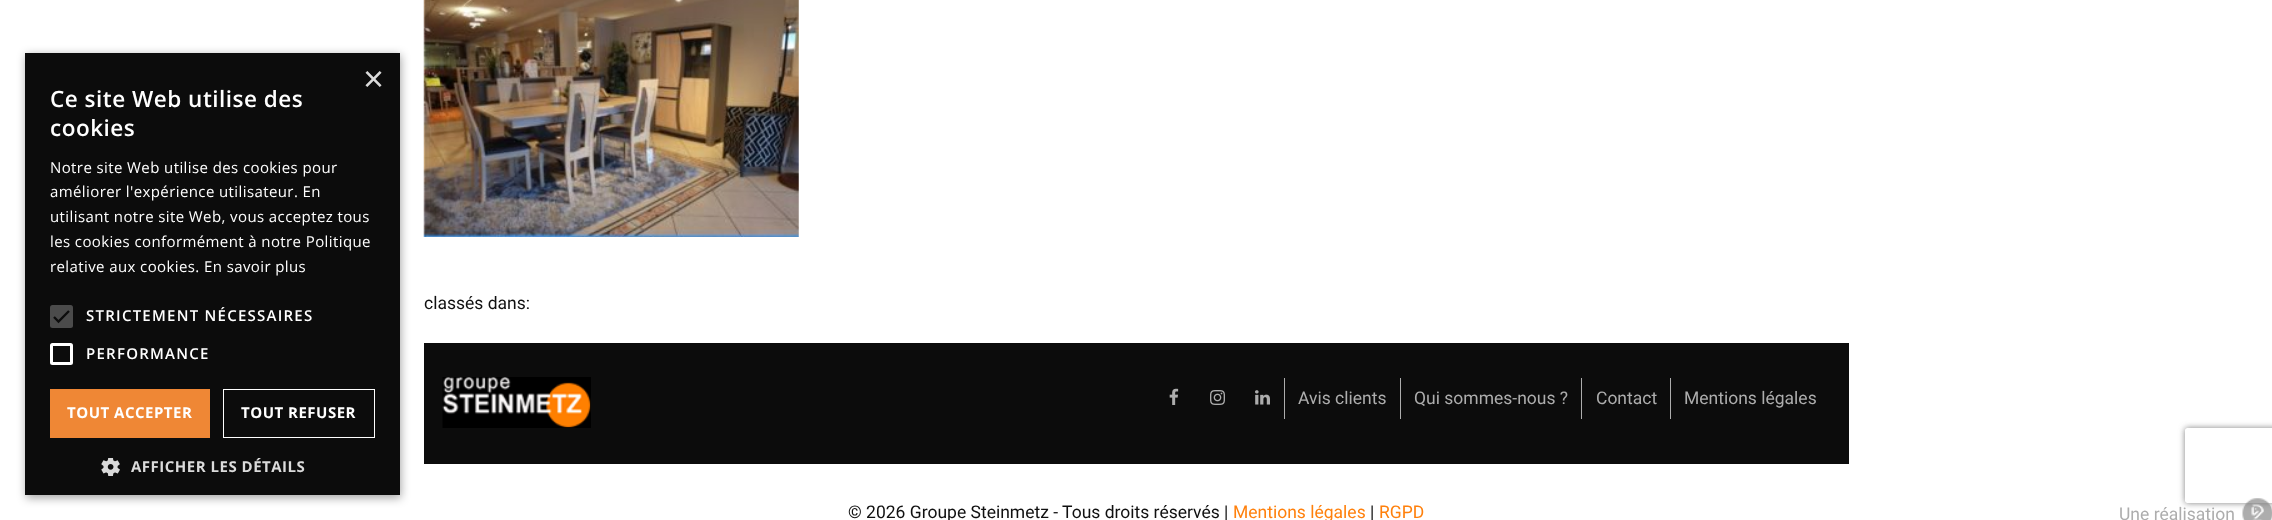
<?xml version="1.0" encoding="UTF-8"?>
<svg xmlns="http://www.w3.org/2000/svg" width="2272" height="520">
    <defs>
        <filter id="blur1" x="-50%" y="-200%" width="200%" height="500%"><feGaussianBlur stdDeviation="5"/></filter>
        <clipPath id="clip1"><path d="M 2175 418 H 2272 V 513 H 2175 Z M 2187.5 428 H 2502.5 C 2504 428 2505 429 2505 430.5 V 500.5 C 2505 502 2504 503 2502.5 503 H 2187.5 C 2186 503 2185 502 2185 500.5 V 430.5 C 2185 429 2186 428 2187.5 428 Z" clip-rule="evenodd"/></clipPath>
        <filter id="blur2" x="-50%" y="-200%" width="200%" height="500%"><feGaussianBlur stdDeviation="3"/></filter>
    </defs>
    <rect width="100%" height="100%" fill="#FFFFFF"/>
    <rect x="26" y="55" width="375" height="443" fill="#000000" fill-opacity="0.35" filter="url(#blur1)"/>
    <rect x="25" y="53" width="375" height="442" fill="#0C0C0C"/>
    <text x="363" y="91" font-family="Liberation Sans" font-size="36" fill="#DBDBDB">×</text>
    <text font-family="Open Sans" font-size="22.5" font-weight="600" letter-spacing="0.5" fill="#FFFFFF">
        <tspan x="50" y="107">Ce site Web utilise des</tspan>
        <tspan x="50" y="136">cookies</tspan>
    </text>
    <text font-family="Open Sans" font-size="15" letter-spacing="0.4" fill="#FFFFFF">
        <tspan x="50" y="173">Notre site Web utilise des cookies pour</tspan>
        <tspan x="50" y="197">améliorer l'expérience utilisateur. En</tspan>
        <tspan x="50" y="222">utilisant notre site Web, vous acceptez tous</tspan>
        <tspan x="50" y="247">les cookies conformément à notre Politique</tspan>
        <tspan x="50" y="272">relative aux cookies. En savoir plus</tspan>
    </text>
    <rect x="50" y="305" width="23" height="23" rx="2.5" fill="#4B4B4B"/>
    <path d="M 54 317 L 58.5 321.5 L 69 311" fill="none" stroke="#0C0C0C" stroke-width="2.3"/>
    <text x="86" y="321" font-family="Open Sans" font-size="15" font-weight="600" letter-spacing="1.25" fill="#FFFFFF">STRICTEMENT NÉCESSAIRES</text>
    <rect x="51.5" y="344.5" width="20" height="19" rx="1" fill="none" stroke="#FFFFFF" stroke-width="3"/>
    <text x="86" y="359" font-family="Open Sans" font-size="15" font-weight="600" letter-spacing="1.25" fill="#FFFFFF">PERFORMANCE</text>
    <rect x="50" y="389" width="160" height="49" fill="#EF8735"/>
    <text x="67" y="418" font-family="Open Sans" font-size="15" font-weight="700" letter-spacing="0.5" fill="#FFFFFF">TOUT ACCEPTER</text>
    <rect x="223.5" y="389.5" width="151" height="48" fill="none" stroke="#FFFFFF"/>
    <text x="241" y="418" font-family="Open Sans" font-size="15" font-weight="700" letter-spacing="0.5" fill="#FFFFFF">TOUT REFUSER</text>
    <image x="101" y="458" width="19" height="18" href="img_01.png"/>
    <text x="131" y="472" font-family="Open Sans" font-size="15" font-weight="700" letter-spacing="0.5" fill="#DBDBDB">AFFICHER LES DÉTAILS</text>
    <image x="423" y="0" width="376" height="237" href="img_02.png"/>
    <text x="424" y="309" font-family="Roboto" font-size="17.5" fill="#101010">classés dans:</text>
    <rect x="424" y="343" width="1425" height="121" fill="#0C0C0C"/>
    <image x="442" y="377" width="149" height="51" href="img_03.png"/>
    <rect x="1284" y="378" width="1" height="41" fill="#ADADAD"/>
    <image x="1169" y="388" width="10" height="17" href="img_04.png"/>
    <image x="1210" y="390" width="15" height="15" href="img_05.png"/>
    <image x="1255" y="390" width="15" height="15" href="img_06.png"/>
    <text x="1298" y="404" font-family="Roboto" font-size="17.5" fill="#ADADAD">Avis clients</text>
    <rect x="1400" y="378" width="1" height="41" fill="#ADADAD"/>
    <text x="1414" y="404" font-family="Roboto" font-size="17.5" fill="#ADADAD">Qui sommes-nous ?</text>
    <rect x="1581" y="378" width="1" height="41" fill="#ADADAD"/>
    <text x="1596" y="404" font-family="Roboto" font-size="17.5" fill="#ADADAD">Contact</text>
    <rect x="1670" y="378" width="1" height="41" fill="#ADADAD"/>
    <text x="1684" y="404" font-family="Roboto" font-size="17.5" fill="#ADADAD">Mentions légales</text>
    <text x="848" y="518" font-family="Roboto" font-size="17.5" fill="#101010">© 2026 Groupe Steinmetz - Tous droits réservés |</text>
    <text x="1233" y="518" font-family="Roboto" font-size="17.5" fill="#FF800C">Mentions légales</text>
    <text x="1370" y="518" font-family="Roboto" font-size="17.5" fill="#101010">|</text>
    <text x="1379" y="518" font-family="Roboto" font-size="17.5" fill="#FF800C">RGPD</text>
    <text x="2119" y="520" font-family="Roboto" font-size="17.5" fill="#ADADAD">Une réalisation</text>
    <image x="2242" y="498" width="30" height="22" href="img_07.png"/>
    <g clip-path="url(#clip1)">
        <rect x="2185" y="428" width="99" height="75" rx="2.5" fill="#808080" filter="url(#blur2)"/>
    </g>
</svg>
